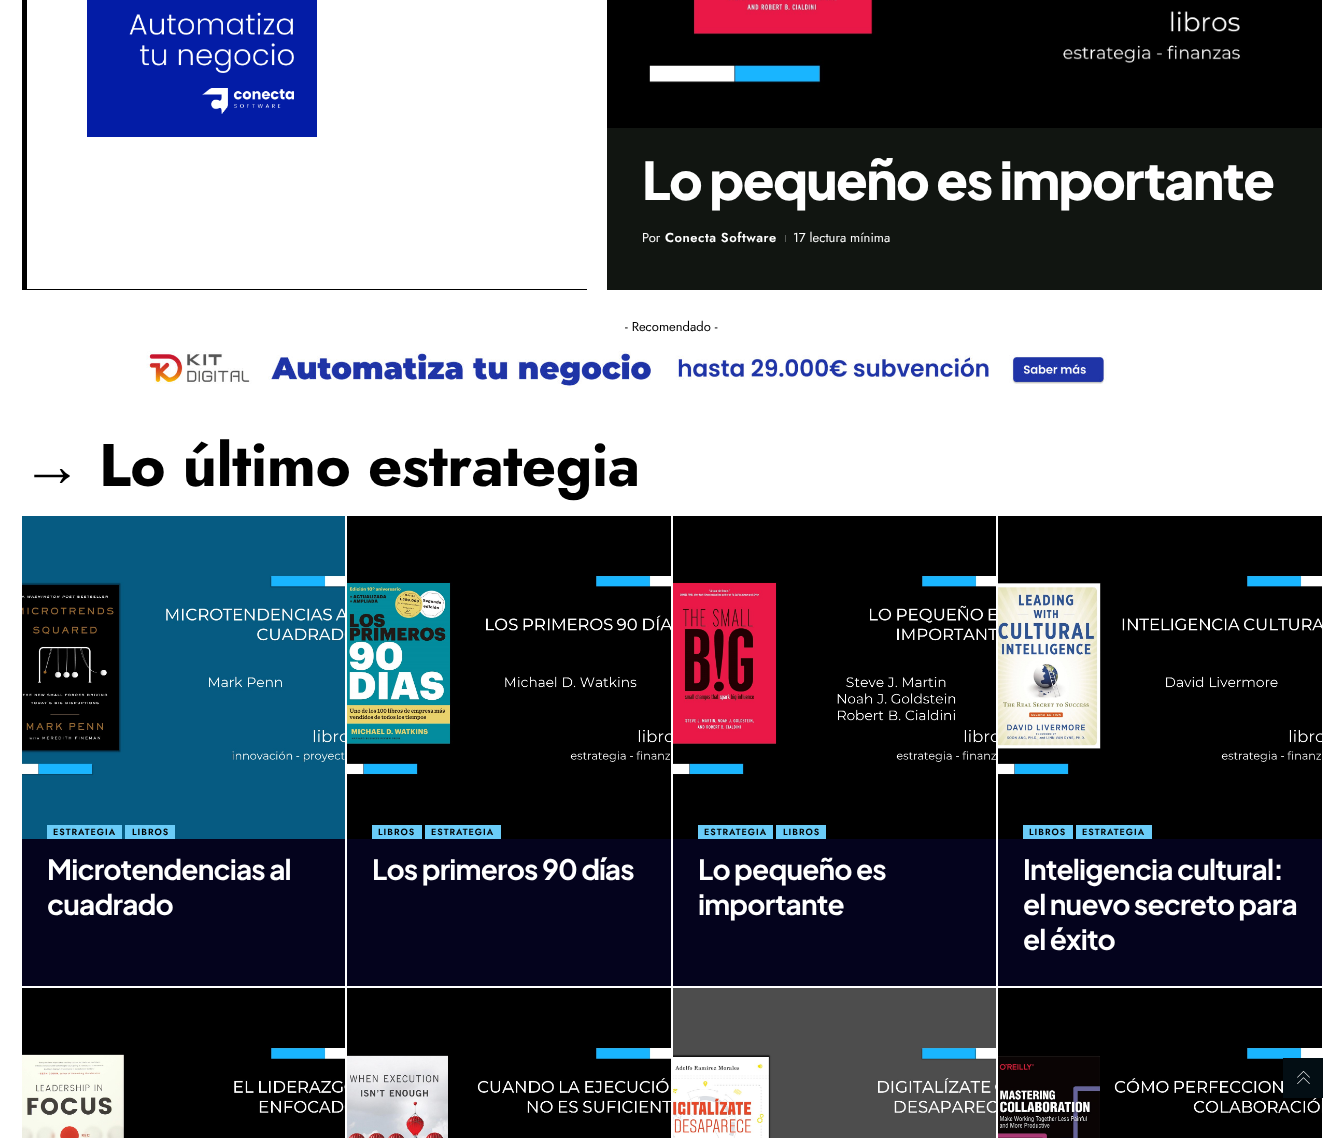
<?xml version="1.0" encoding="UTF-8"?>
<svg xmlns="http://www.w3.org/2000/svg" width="1343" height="1138">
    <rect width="100%" height="100%" fill="#FFFFFF"/>
    <rect x="22" y="289" width="565" height="1" fill="#000000"/>
    <rect x="22" y="0" width="5" height="290" fill="#000000"/>
    <image x="87" y="0" width="230" height="137" href="img_01.png"/>
    <rect x="607" y="128" width="715" height="162" fill="#111511"/>
    <image x="607" y="0" width="715" height="128" href="img_02.png"/>
    <text x="642" y="200" font-family="Plus Jakarta Sans" font-size="52" font-weight="800" letter-spacing="-1.5" fill="#FFFFFF">Lo pequeño es importante</text>
    <text x="642" y="242" font-family="Jost" font-size="13" fill="#FFFFFF">Por</text>
    <text x="665" y="242" font-family="Jost" font-size="13" font-weight="600" letter-spacing="0.5" fill="#FFFFFF">Conecta Software</text>
    <rect x="785" y="235" width="1" height="7" fill="#585B58"/>
    <text x="793" y="242" font-family="Jost" font-size="13" fill="#FFFFFF">17 lectura mínima</text>
    <text x="625" y="331" font-family="Jost" font-size="13" fill="#000000">- Recomendado -</text>
    <image x="146" y="351" width="961" height="37" href="img_03.png"/>
    <text x="22" y="486" font-family="Liberation Serif" font-size="60" font-weight="700" letter-spacing="-0.5" fill="#000000">→</text>
    <text x="99" y="486" font-family="Jost" font-size="60" font-weight="700" letter-spacing="-0.5" fill="#000000">Lo último estrategia</text>
    <rect x="22" y="839" width="323" height="147" fill="#04031D"/>
    <image x="22" y="516" width="323" height="323" href="img_04.png"/>
    <rect x="47" y="825" width="75" height="14" fill="#6ACCF8"/>
    <text x="53" y="835" font-family="Jost" font-size="9" font-weight="600" letter-spacing="1" fill="#000000">ESTRATEGIA</text>
    <rect x="125" y="825" width="50" height="14" fill="#6ACCF8"/>
    <text x="132" y="835" font-family="Jost" font-size="9" font-weight="600" letter-spacing="1" fill="#000000">LIBROS</text>
    <text font-family="Plus Jakarta Sans" font-size="28" font-weight="700" letter-spacing="-0.8" fill="#FFFFFF">
        <tspan x="47" y="880">Microtendencias al</tspan>
        <tspan x="47" y="915">cuadrado</tspan>
    </text>
    <rect x="347" y="839" width="324" height="147" fill="#04031D"/>
    <image x="347" y="516" width="324" height="323" href="img_05.png"/>
    <rect x="372" y="825" width="50" height="14" fill="#6ACCF8"/>
    <text x="378" y="835" font-family="Jost" font-size="9" font-weight="600" letter-spacing="1" fill="#000000">LIBROS</text>
    <rect x="425" y="825" width="76" height="14" fill="#6ACCF8"/>
    <text x="431" y="835" font-family="Jost" font-size="9" font-weight="600" letter-spacing="1" fill="#000000">ESTRATEGIA</text>
    <text x="372" y="880" font-family="Plus Jakarta Sans" font-size="28" font-weight="700" letter-spacing="-0.8" fill="#FFFFFF">Los primeros 90 días</text>
    <rect x="673" y="839" width="323" height="147" fill="#04031D"/>
    <image x="673" y="516" width="323" height="323" href="img_06.png"/>
    <rect x="698" y="825" width="75" height="14" fill="#6ACCF8"/>
    <text x="704" y="835" font-family="Jost" font-size="9" font-weight="600" letter-spacing="1" fill="#000000">ESTRATEGIA</text>
    <rect x="776" y="825" width="50" height="14" fill="#6ACCF8"/>
    <text x="783" y="835" font-family="Jost" font-size="9" font-weight="600" letter-spacing="1" fill="#000000">LIBROS</text>
    <text font-family="Plus Jakarta Sans" font-size="28" font-weight="700" letter-spacing="-0.8" fill="#FFFFFF">
        <tspan x="698" y="880">Lo pequeño es</tspan>
        <tspan x="698" y="915">importante</tspan>
    </text>
    <rect x="998" y="839" width="324" height="147" fill="#04031D"/>
    <image x="998" y="516" width="324" height="323" href="img_07.png"/>
    <rect x="1023" y="825" width="50" height="14" fill="#6ACCF8"/>
    <text x="1029" y="835" font-family="Jost" font-size="9" font-weight="600" letter-spacing="1" fill="#000000">LIBROS</text>
    <rect x="1076" y="825" width="76" height="14" fill="#6ACCF8"/>
    <text x="1082" y="835" font-family="Jost" font-size="9" font-weight="600" letter-spacing="1" fill="#000000">ESTRATEGIA</text>
    <text font-family="Plus Jakarta Sans" font-size="28" font-weight="700" letter-spacing="-0.8" fill="#FFFFFF">
        <tspan x="1023" y="880">Inteligencia cultural:</tspan>
        <tspan x="1023" y="915">el nuevo secreto para</tspan>
        <tspan x="1023" y="950">el éxito</tspan>
    </text>
    <image x="22" y="988" width="323" height="150" href="img_08.png"/>
    <image x="347" y="988" width="324" height="150" href="img_09.png"/>
    <image x="673" y="988" width="323" height="150" href="img_10.png"/>
    <image x="998" y="988" width="324" height="150" href="img_11.png"/>
    <rect x="1283" y="1058" width="40" height="40" fill="#030E14"/>
    <image x="1297" y="1071" width="13" height="13" href="img_12.png"/>
</svg>
